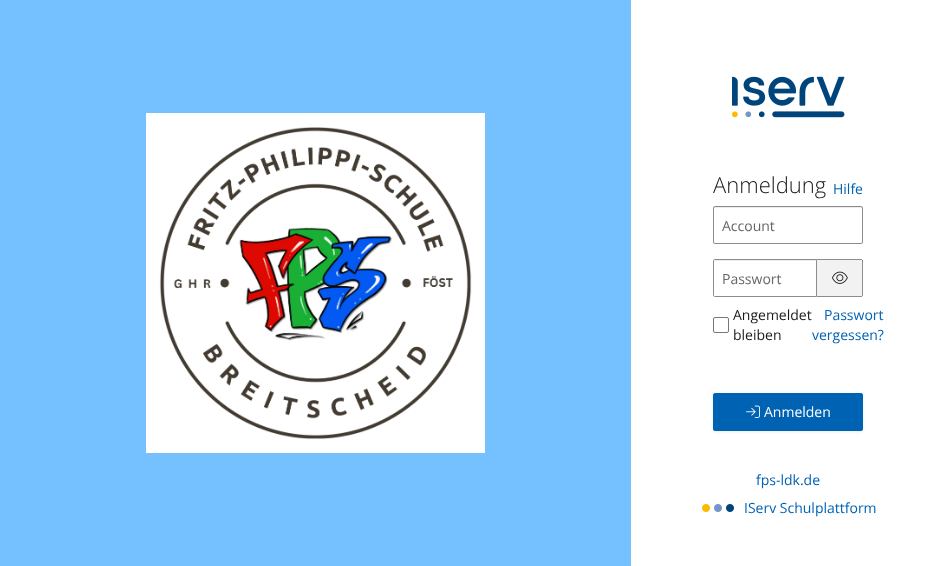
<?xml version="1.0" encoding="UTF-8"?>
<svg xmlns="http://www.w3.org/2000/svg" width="946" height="566">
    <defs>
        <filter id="blur1" x="-50%" y="-200%" width="200%" height="500%"><feGaussianBlur stdDeviation="1.5"/></filter>
    </defs>
    <rect width="100%" height="100%" fill="#FFFFFF"/>
    <rect x="0" y="0" width="631" height="566" fill="#75C1FF"/>
    <image x="146" y="113" width="339" height="340" href="img_01.png"/>
    <image x="732" y="76" width="113" height="42" href="img_02.png"/>
    <text x="713" y="193" font-family="Open Sans" font-size="22" font-weight="300" fill="#1A1A1A">Anmeldung</text>
    <text x="833" y="194" font-family="Open Sans" font-size="14" fill="#0062B3">Hilfe</text>
    <path d="M 715 208 H 861 C 862 208 862 208 862 209 C 862 208 862 207 861 207 H 714 V 209 C 714 208 714 208 715 208 Z" fill="#ECECEC"/>
    <rect x="713.5" y="206.5" width="149" height="37" rx="1.5" fill="none" stroke="#8C8C8C"/>
    <text x="722" y="231" font-family="Open Sans" font-size="14" fill="#666666">Account</text>
    <path d="M 715 261 H 816 V 260 H 715 C 714 260 714 261 714 262 C 714 261 714 261 715 261 Z" fill="#ECECEC"/>
    <path d="M 715 259.5 H 816.5 V 296.5 H 715 C 714 296.5 713.5 296 713.5 295 V 261 C 713.5 260 714 259.5 715 259.5 Z" fill="none" stroke="#8C8C8C"/>
    <text x="722" y="284" font-family="Open Sans" font-size="14" fill="#666666">Passwort</text>
    <path d="M 817 259 H 861 C 862 259 863 260 863 261 V 295 C 863 296 862 297 861 297 H 817 Z" fill="#F2F2F2"/>
    <rect x="817" y="259" width="45" height="1" fill="#8C8C8C"/>
    <rect x="862" y="260" width="1" height="36" fill="#8C8C8C"/>
    <rect x="817" y="296" width="45" height="1" fill="#8C8C8C"/>
    <image x="832" y="271" width="16" height="13" href="img_03.png"/>
    <rect x="713.5" y="317.5" width="15" height="15" rx="1.5" fill="none" stroke="#767676"/>
    <text font-family="Open Sans" font-size="14" fill="#1A1A1A">
        <tspan x="733" y="320">Angemeldet</tspan>
        <tspan x="733" y="340">bleiben</tspan>
    </text>
    <text x="824" y="320" font-family="Open Sans" font-size="14" fill="#0062B3">Passwort</text>
    <text x="812" y="340" font-family="Open Sans" font-size="14" fill="#0062B3">vergessen?</text>
    <rect x="713" y="394" width="150" height="38" rx="2" fill="#000000" fill-opacity="0.08" filter="url(#blur1)"/>
    <rect x="713.5" y="393.5" width="149" height="37" rx="1.5" fill="#0062B3" stroke="#0062B3"/>
    <image x="746" y="405" width="14" height="13" href="img_04.png"/>
    <text x="764" y="417" font-family="Open Sans" font-size="14" fill="#FFFFFF">Anmelden</text>
    <text x="756" y="485" font-family="Open Sans" font-size="14" fill="#0062B3">fps-ldk.de</text>
    <image x="702" y="504" width="8" height="8" href="img_05.png"/>
    <image x="714" y="504" width="8" height="8" href="img_06.png"/>
    <image x="726" y="504" width="8" height="8" href="img_07.png"/>
    <text x="744" y="513" font-family="Open Sans" font-size="14" fill="#0062B3">IServ Schulplattform</text>
</svg>
